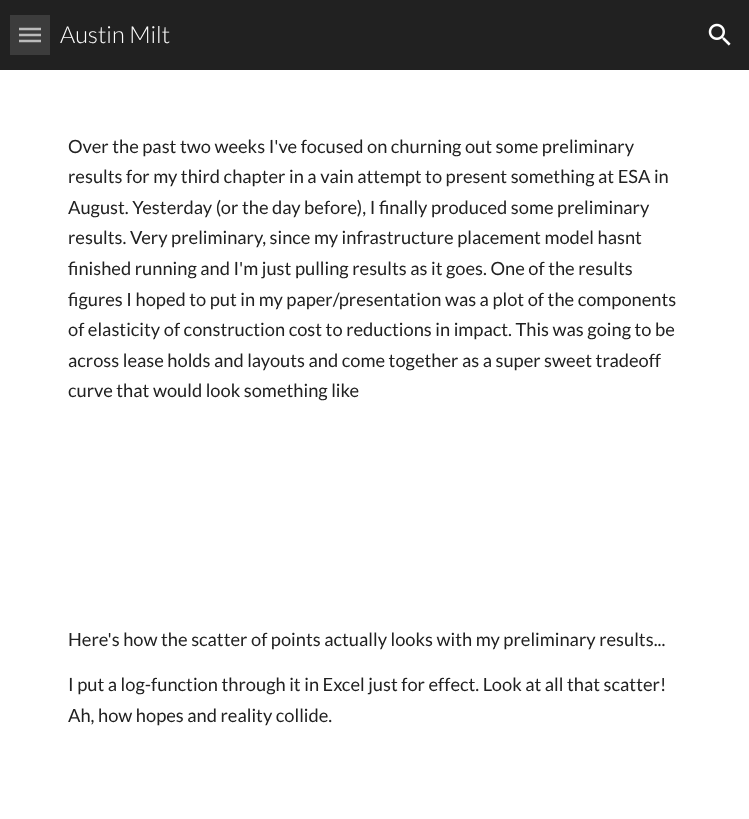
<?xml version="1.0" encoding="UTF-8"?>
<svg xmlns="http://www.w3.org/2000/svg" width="749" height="819">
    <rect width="100%" height="100%" fill="#FFFFFF"/>
    <rect x="0" y="0" width="749" height="70" fill="#212121"/>
    <rect x="10" y="15" width="40" height="40" fill="#3C3C3C"/>
    <path d="M 19 29 H 41 M 19 35 H 41 M 19 41 H 41" fill="none" stroke="#BBBBBB" stroke-width="2.5"/>
    <text x="60" y="43" font-family="Lato" font-size="23.5" font-weight="300" fill="#FFFFFF">Austin Milt</text>
    <image x="708" y="23" width="23" height="23" href="img_01.png"/>
    <text font-family="Lato" font-size="18.3" fill="#212121">
        <tspan x="68" y="153">Over the past two weeks I've focused on churning out some preliminary</tspan>
        <tspan x="68" y="183">results for my third chapter in a vain attempt to present something at ESA in</tspan>
        <tspan x="68" y="214">August. Yesterday (or the day before), I finally produced some preliminary</tspan>
        <tspan x="68" y="244">results. Very preliminary, since my infrastructure placement model hasnt</tspan>
        <tspan x="68" y="275">finished running and I'm just pulling results as it goes. One of the results</tspan>
        <tspan x="68" y="306">figures I hoped to put in my paper/presentation was a plot of the components</tspan>
        <tspan x="68" y="336">of elasticity of construction cost to reductions in impact. This was going to be</tspan>
        <tspan x="68" y="367">across lease holds and layouts and come together as a super sweet tradeoff</tspan>
        <tspan x="68" y="397">curve that would look something like</tspan>
    </text>
    <text x="68" y="646" font-family="Lato" font-size="18.3" fill="#212121">Here's how the scatter of points actually looks with my preliminary results...</text>
    <text font-family="Lato" font-size="18.3" fill="#212121">
        <tspan x="68" y="691">I put a log-function through it in Excel just for effect. Look at all that scatter!</tspan>
        <tspan x="68" y="722">Ah, how hopes and reality collide.</tspan>
    </text>
</svg>
